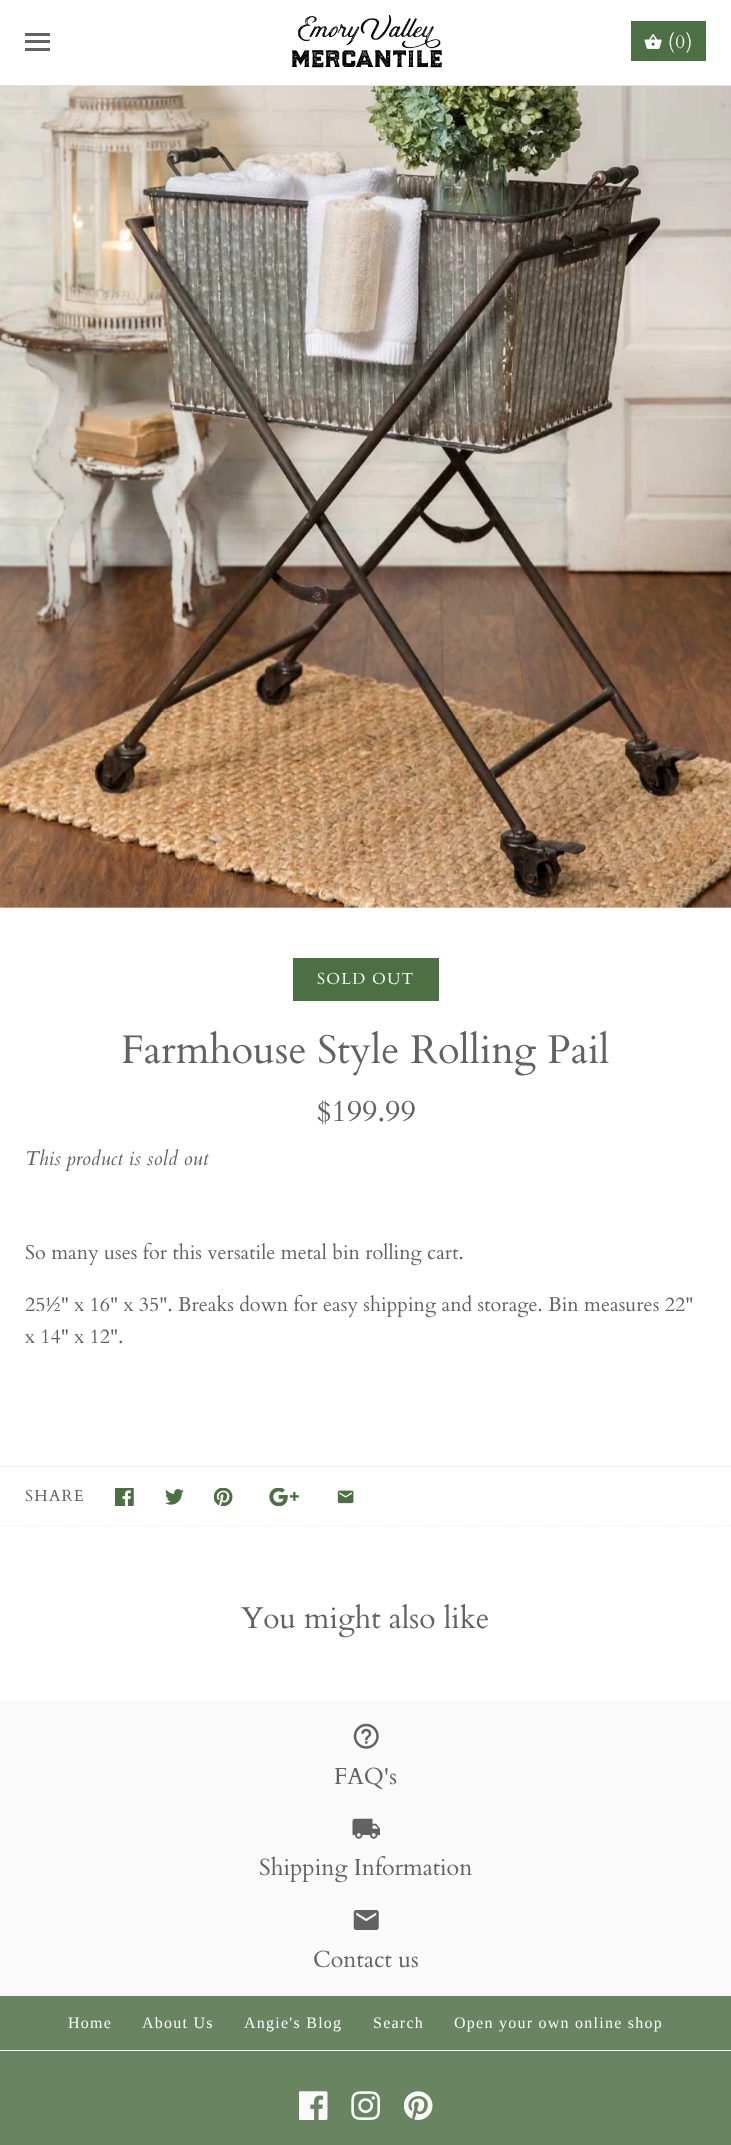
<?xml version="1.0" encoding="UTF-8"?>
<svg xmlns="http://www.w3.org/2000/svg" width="731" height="2145">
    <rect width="100%" height="100%" fill="#FFFFFF"/>
    <rect x="0" y="85" width="731" height="1" fill="#E6E2D9"/>
    <rect x="25" y="33" width="25" height="3" fill="#626262"/>
    <rect x="25" y="40" width="25" height="3" fill="#626262"/>
    <rect x="25" y="48" width="25" height="3" fill="#626262"/>
    <image x="292" y="15" width="150" height="53" href="img_01.png"/>
    <rect x="631" y="21" width="75" height="40" fill="#4C7043"/>
    <image x="644" y="34" width="18" height="15" href="img_02.png"/>
    <text x="668" y="48" font-family="Cardo" font-size="19" letter-spacing="1.25" fill="#FAFAFA">(0)</text>
    <image x="0" y="86" width="731" height="822" href="img_03.png"/>
    <rect x="293" y="958" width="146" height="43" fill="#4C7043"/>
    <text x="317" y="984" font-family="Cardo" font-size="16" letter-spacing="1.25" fill="#FAFAFA">SOLD OUT</text>
    <text x="121" y="1063" font-family="Cardo" font-size="40" fill="#626262">Farmhouse Style Rolling Pail</text>
    <text x="316" y="1121" font-family="Cardo" font-size="30" fill="#626262">$199.99</text>
    <text x="25" y="1165" font-family="Cardo" font-size="20" font-style="italic" fill="#626262">This product is sold out</text>
    <text x="25" y="1259" font-family="Cardo" font-size="20" fill="#626262">So many uses for this versatile metal bin rolling cart.</text>
    <text font-family="Cardo" font-size="20" fill="#626262">
        <tspan x="25" y="1311">25½" x 16" x 35". Breaks down for easy shipping and storage. Bin measures 22"</tspan>
        <tspan x="25" y="1343">x 14" x 12".</tspan>
    </text>
    <rect x="0" y="1466" width="731" height="1" fill="#F1F1F1"/>
    <path d="M 0 1525.5 H 731" fill="none" stroke="#F1F1F1" stroke-width="1.2" stroke-dasharray="1.25 1.25"/>
    <text x="25" y="1501" font-family="Cardo" font-size="16" letter-spacing="1.25" fill="#626262">SHARE</text>
    <image x="115" y="1488" width="19" height="18" href="img_04.png"/>
    <image x="165" y="1489" width="19" height="16" href="img_05.png"/>
    <image x="214" y="1488" width="19" height="18" href="img_06.png"/>
    <image x="269" y="1488" width="30" height="18" href="img_07.png"/>
    <image x="337" y="1490" width="17" height="14" href="img_08.png"/>
    <text x="241" y="1628" font-family="Cardo" font-size="30" fill="#626262">You might also like</text>
    <rect x="0" y="1996" width="731" height="149" fill="#688461"/>
    <rect x="0" y="1700" width="731" height="295" fill="#FAFAFA"/>
    <image x="353" y="1723" width="26" height="26" href="img_09.png"/>
    <text x="334" y="1784" font-family="Cardo" font-size="23.25" fill="#626262">FAQ's</text>
    <image x="352" y="1818" width="28" height="21" href="img_10.png"/>
    <text x="259" y="1875" font-family="Cardo" font-size="23.25" fill="#626262">Shipping Information</text>
    <image x="353" y="1910" width="26" height="20" href="img_11.png"/>
    <text x="313" y="1967" font-family="Cardo" font-size="23.25" fill="#626262">Contact us</text>
    <rect x="0" y="1995" width="731" height="1" fill="#F5F5F5"/>
    <rect x="0" y="2050" width="731" height="1" fill="#F5F5F5"/>
    <text x="68" y="2028" font-family="Liberation Serif" font-size="16" letter-spacing="1.25" fill="#FAFAFA">Home</text>
    <text x="142" y="2028" font-family="Liberation Serif" font-size="16" letter-spacing="1.25" fill="#FAFAFA">About Us</text>
    <text x="244" y="2028" font-family="Liberation Serif" font-size="16" letter-spacing="1.25" fill="#FAFAFA">Angie's Blog</text>
    <text x="373" y="2028" font-family="Liberation Serif" font-size="16" letter-spacing="1.25" fill="#FAFAFA">Search</text>
    <text x="454" y="2028" font-family="Liberation Serif" font-size="16" letter-spacing="1.25" fill="#FAFAFA">Open your own online shop</text>
    <image x="299" y="2091" width="29" height="29" href="img_12.png"/>
    <image x="351" y="2091" width="29" height="29" href="img_13.png"/>
    <image x="404" y="2091" width="29" height="29" href="img_14.png"/>
</svg>
